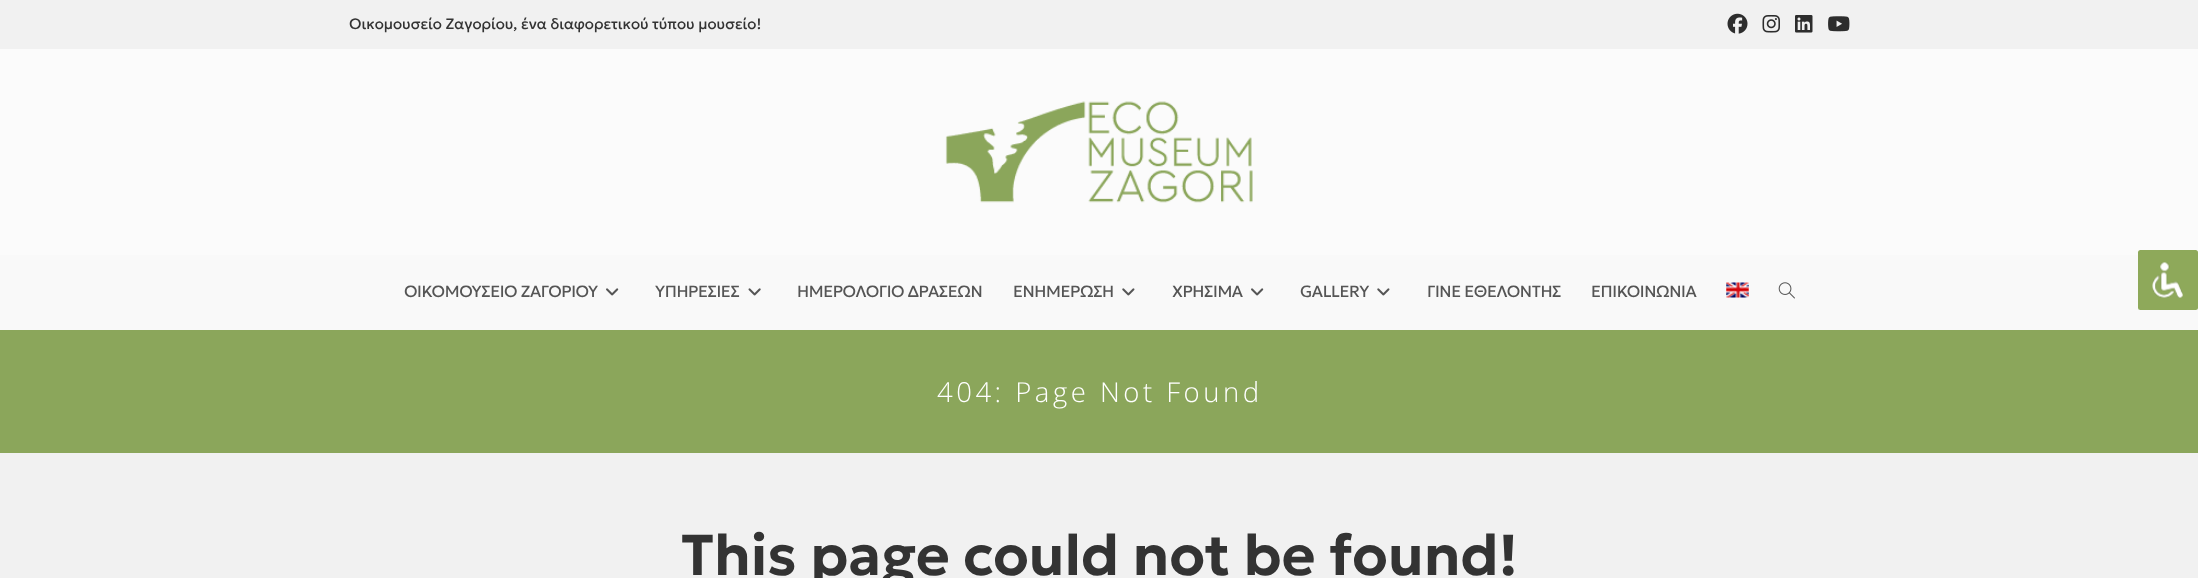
<?xml version="1.0" encoding="UTF-8"?>
<svg xmlns="http://www.w3.org/2000/svg" width="2198" height="578">
    <rect width="100%" height="100%" fill="#F1F1F1"/>
    <text x="349" y="29" font-family="'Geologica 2'" font-size="15" font-weight="100" fill="#333333">Οικομουσείο Ζαγορίου, ένα διαφορετικού τύπου μουσείο!</text>
    <image x="1727" y="13" width="21" height="21" href="img_01.png"/>
    <image x="1762" y="15" width="18" height="18" href="img_02.png"/>
    <image x="1795" y="15" width="18" height="18" href="img_03.png"/>
    <image x="1828" y="16" width="22" height="16" href="img_04.png"/>
    <rect x="0" y="255" width="2198" height="75" fill="#F9F9F9"/>
    <rect x="0" y="49" width="2198" height="206" fill="#FBFBFB"/>
    <image x="945" y="101" width="308" height="102" href="img_05.png"/>
    <text x="404" y="297" font-family="'Geologica 2'" font-size="16.25" font-weight="100" letter-spacing="-0.4" fill="#555555">ΟΙΚΟΜΟΥΣΕΙΟ ΖΑΓΟΡΙΟΥ</text>
    <image x="606" y="288" width="13" height="8" href="img_06.png"/>
    <text x="655" y="297" font-family="'Geologica 2'" font-size="16.25" font-weight="100" letter-spacing="-0.4" fill="#555555">ΥΠΗΡΕΣΙΕΣ</text>
    <image x="748" y="288" width="13" height="8" href="img_07.png"/>
    <text x="797" y="297" font-family="'Geologica 2'" font-size="16.25" font-weight="100" letter-spacing="-0.4" fill="#555555">ΗΜΕΡΟΛΟΓΙΟ ΔΡΑΣΕΩΝ</text>
    <text x="1013" y="297" font-family="'Geologica 2'" font-size="16.25" font-weight="100" letter-spacing="-0.4" fill="#555555">ΕΝΗΜΕΡΩΣΗ</text>
    <image x="1122" y="288" width="13" height="8" href="img_08.png"/>
    <text x="1172" y="297" font-family="'Geologica 2'" font-size="16.25" font-weight="100" letter-spacing="-0.4" fill="#555555">ΧΡΗΣΙΜΑ</text>
    <image x="1251" y="288" width="13" height="8" href="img_06.png"/>
    <text x="1300" y="297" font-family="'Geologica 2'" font-size="16.25" font-weight="100" letter-spacing="-0.4" fill="#555555">GALLERY</text>
    <image x="1377" y="288" width="13" height="8" href="img_08.png"/>
    <text x="1427" y="297" font-family="'Geologica 2'" font-size="16.25" font-weight="100" letter-spacing="-0.4" fill="#555555">ΓΙΝΕ ΕΘΕΛΟΝΤΗΣ</text>
    <text x="1591" y="297" font-family="'Geologica 2'" font-size="16.25" font-weight="100" letter-spacing="-0.4" fill="#555555">ΕΠΙΚΟΙΝΩΝΙΑ</text>
    <image x="1726" y="282" width="23" height="16" href="img_09.png"/>
    <image x="1778" y="282" width="17" height="17" href="img_10.png"/>
    <rect x="0" y="330" width="2198" height="123" fill="#8BA65B"/>
    <text x="937" y="402" font-family="Open Sans" font-size="27.5" font-weight="300" letter-spacing="3.5" fill="#FFFFFF">404: Page Not Found</text>
    <text x="681" y="575" font-family="Geologica" font-size="57.5" font-weight="100" fill="#333333">This page could not be found!</text>
    <rect x="2138" y="250" width="60" height="60" rx="2.5" fill="#8EA95A"/>
    <image x="2152" y="262" width="31" height="36" href="img_11.png"/>
</svg>
